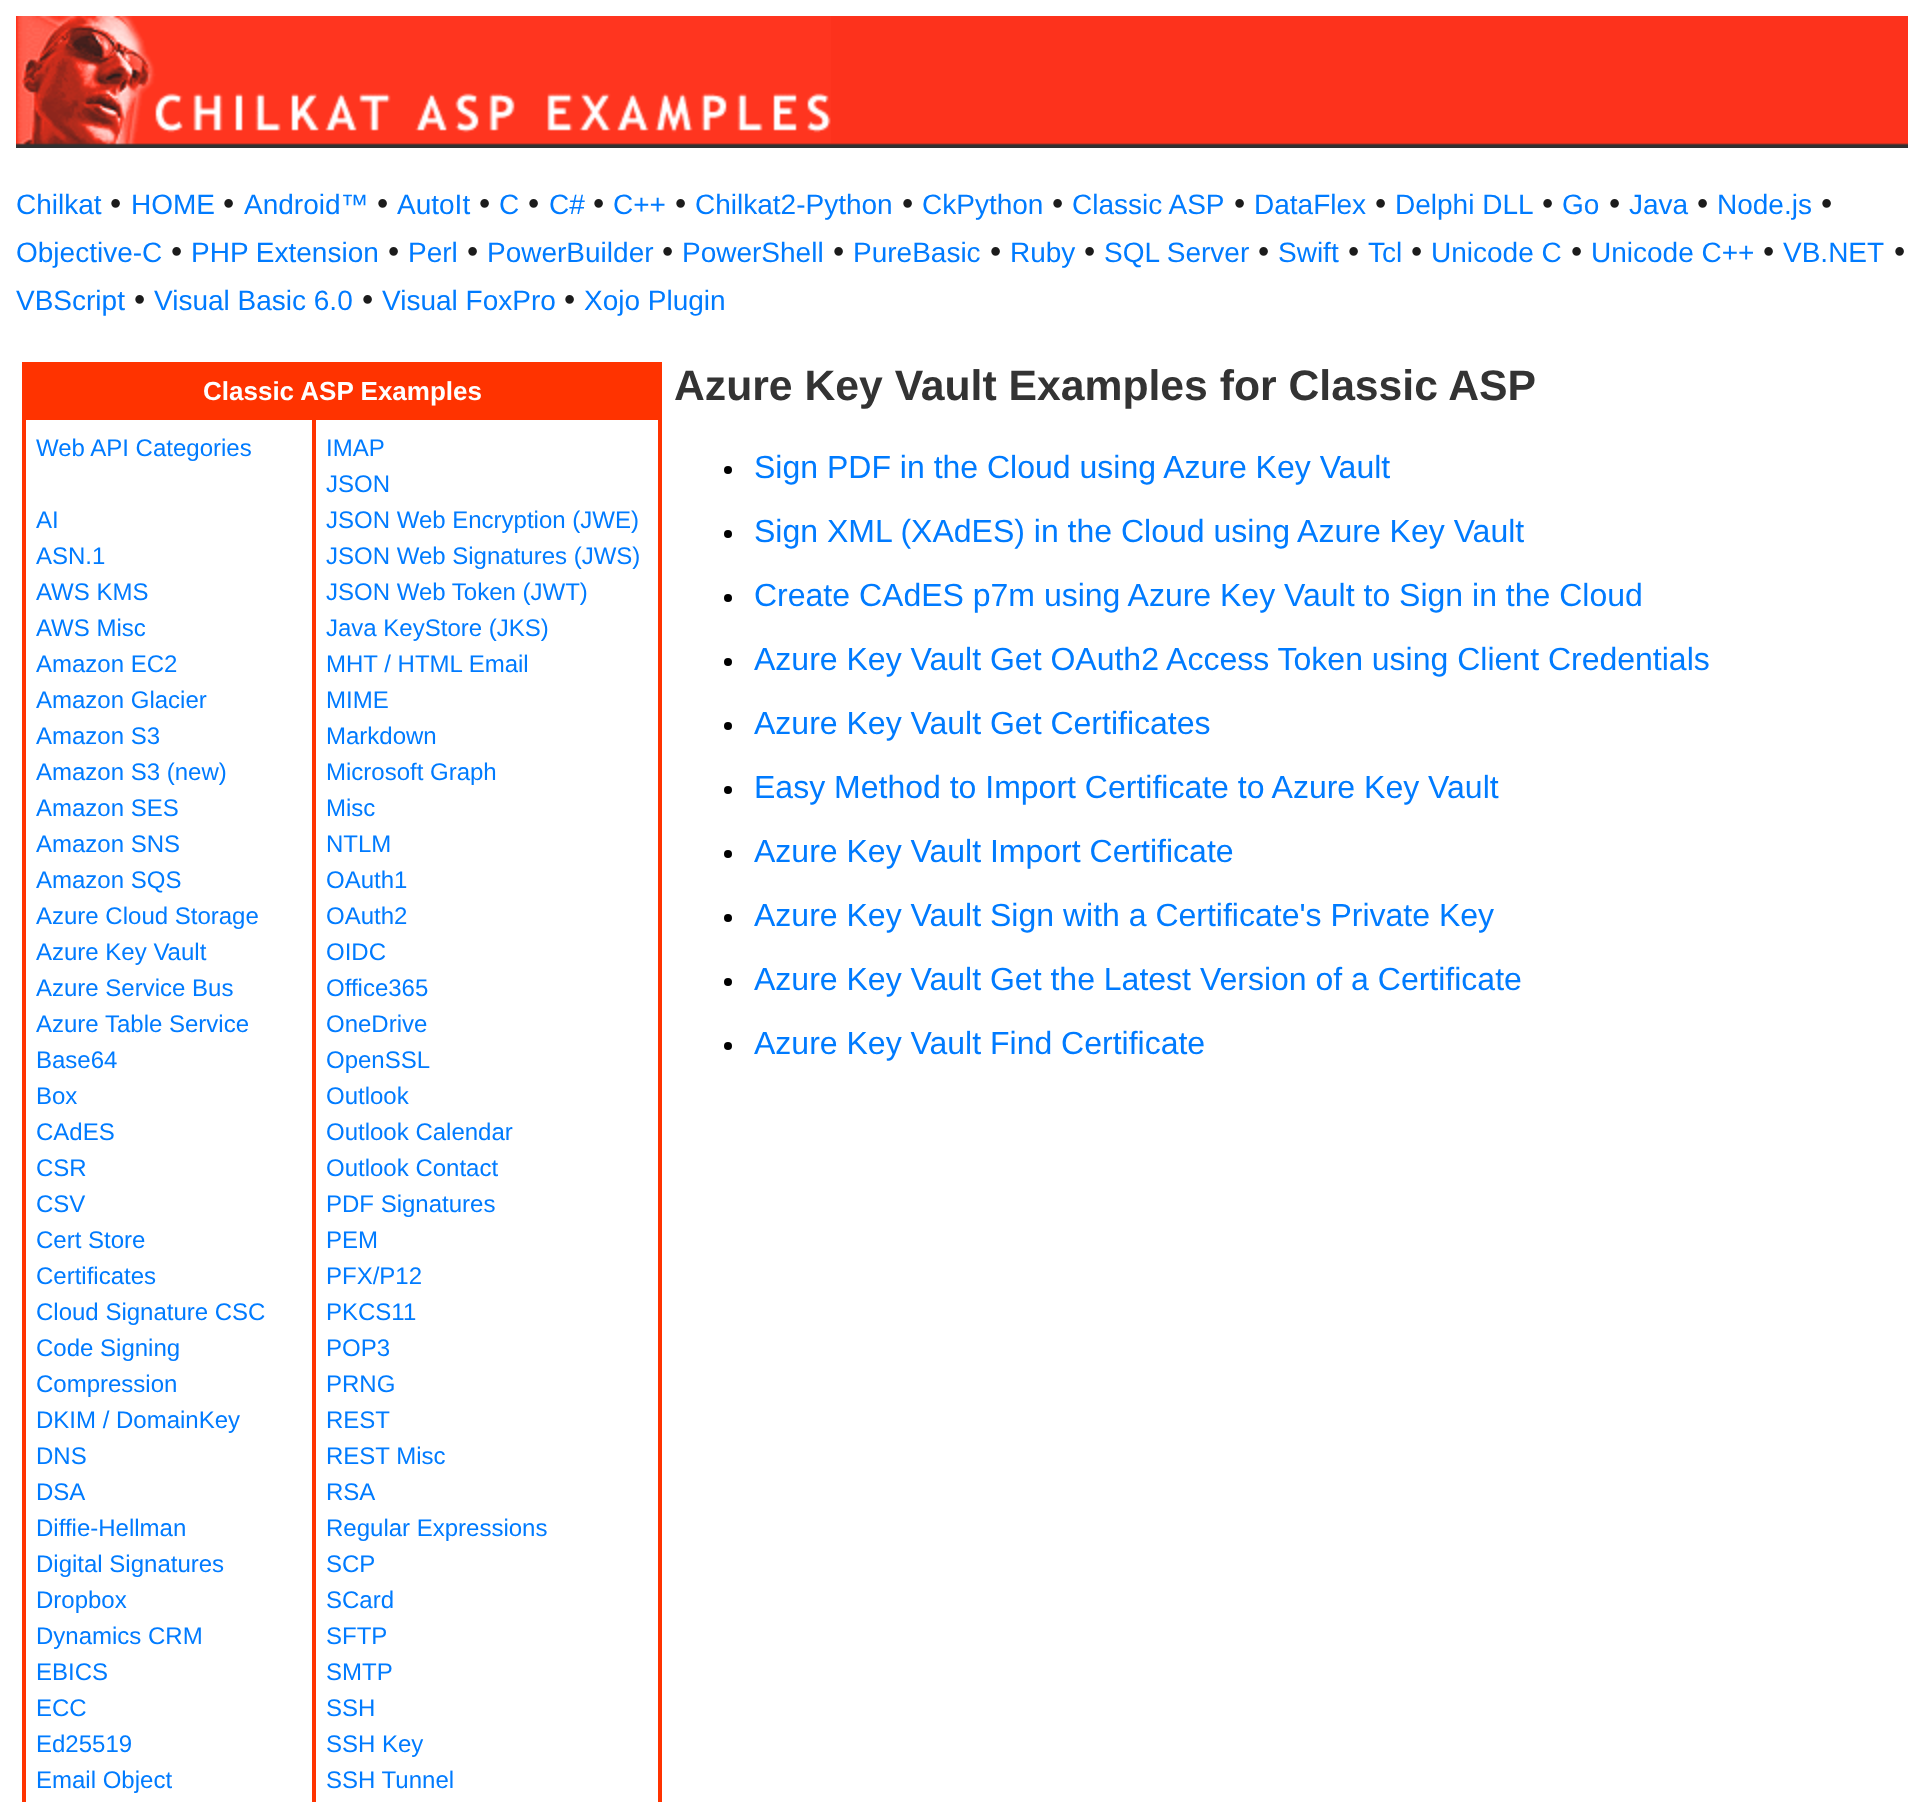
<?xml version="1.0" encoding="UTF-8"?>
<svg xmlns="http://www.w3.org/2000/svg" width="1924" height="1802">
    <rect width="100%" height="100%" fill="#FFFFFF"/>
    <image x="16" y="16" width="1892" height="132" href="img_01.png"/>
    <image x="17" y="16" width="814" height="129" href="img_02.png"/>
    <text x="16" y="214" font-family="Liberation Sans" font-size="28" fill="#007BFF">Chilkat</text>
    <text x="110" y="214" font-family="Liberation Sans" font-size="32" fill="#1C1C1C">•</text>
    <text x="131" y="214" font-family="Liberation Sans" font-size="28" fill="#007BFF">HOME</text>
    <text x="223" y="214" font-family="Liberation Sans" font-size="32" fill="#1C1C1C">•</text>
    <text x="244" y="214" font-family="Liberation Sans" font-size="28" fill="#007BFF">Android™</text>
    <text x="377" y="214" font-family="Liberation Sans" font-size="32" fill="#1C1C1C">•</text>
    <text x="397" y="214" font-family="Liberation Sans" font-size="28" fill="#007BFF">AutoIt</text>
    <text x="479" y="214" font-family="Liberation Sans" font-size="32" fill="#1C1C1C">•</text>
    <text x="499" y="214" font-family="Liberation Sans" font-size="28" fill="#007BFF">C</text>
    <text x="528" y="214" font-family="Liberation Sans" font-size="32" fill="#1C1C1C">•</text>
    <text x="549" y="214" font-family="Liberation Sans" font-size="28" fill="#007BFF">C#</text>
    <text x="593" y="214" font-family="Liberation Sans" font-size="32" fill="#1C1C1C">•</text>
    <text x="613" y="214" font-family="Liberation Sans" font-size="28" fill="#007BFF">C++</text>
    <text x="675" y="214" font-family="Liberation Sans" font-size="32" fill="#1C1C1C">•</text>
    <text x="695" y="214" font-family="Liberation Sans" font-size="28" fill="#007BFF">Chilkat2-Python</text>
    <text x="902" y="214" font-family="Liberation Sans" font-size="32" fill="#1C1C1C">•</text>
    <text x="922" y="214" font-family="Liberation Sans" font-size="28" fill="#007BFF">CkPython</text>
    <text x="1052" y="214" font-family="Liberation Sans" font-size="32" fill="#1C1C1C">•</text>
    <text x="1072" y="214" font-family="Liberation Sans" font-size="28" fill="#007BFF">Classic ASP</text>
    <text x="1234" y="214" font-family="Liberation Sans" font-size="32" fill="#1C1C1C">•</text>
    <text x="1254" y="214" font-family="Liberation Sans" font-size="28" fill="#007BFF">DataFlex</text>
    <text x="1375" y="214" font-family="Liberation Sans" font-size="32" fill="#1C1C1C">•</text>
    <text x="1395" y="214" font-family="Liberation Sans" font-size="28" fill="#007BFF">Delphi DLL</text>
    <text x="1542" y="214" font-family="Liberation Sans" font-size="32" fill="#1C1C1C">•</text>
    <text x="1562" y="214" font-family="Liberation Sans" font-size="28" fill="#007BFF">Go</text>
    <text x="1609" y="214" font-family="Liberation Sans" font-size="32" fill="#1C1C1C">•</text>
    <text x="1629" y="214" font-family="Liberation Sans" font-size="28" fill="#007BFF">Java</text>
    <text x="1697" y="214" font-family="Liberation Sans" font-size="32" fill="#1C1C1C">•</text>
    <text x="1717" y="214" font-family="Liberation Sans" font-size="28" fill="#007BFF">Node.js</text>
    <text x="1821" y="214" font-family="Liberation Sans" font-size="32" fill="#1C1C1C">•</text>
    <text x="16" y="262" font-family="Liberation Sans" font-size="28" fill="#007BFF">Objective-C</text>
    <text x="171" y="262" font-family="Liberation Sans" font-size="32" fill="#1C1C1C">•</text>
    <text x="191" y="262" font-family="Liberation Sans" font-size="28" fill="#007BFF">PHP Extension</text>
    <text x="388" y="262" font-family="Liberation Sans" font-size="32" fill="#1C1C1C">•</text>
    <text x="408" y="262" font-family="Liberation Sans" font-size="28" fill="#007BFF">Perl</text>
    <text x="467" y="262" font-family="Liberation Sans" font-size="32" fill="#1C1C1C">•</text>
    <text x="487" y="262" font-family="Liberation Sans" font-size="28" fill="#007BFF">PowerBuilder</text>
    <text x="662" y="262" font-family="Liberation Sans" font-size="32" fill="#1C1C1C">•</text>
    <text x="682" y="262" font-family="Liberation Sans" font-size="28" fill="#007BFF">PowerShell</text>
    <text x="833" y="262" font-family="Liberation Sans" font-size="32" fill="#1C1C1C">•</text>
    <text x="853" y="262" font-family="Liberation Sans" font-size="28" fill="#007BFF">PureBasic</text>
    <text x="990" y="262" font-family="Liberation Sans" font-size="32" fill="#1C1C1C">•</text>
    <text x="1010" y="262" font-family="Liberation Sans" font-size="28" fill="#007BFF">Ruby</text>
    <text x="1084" y="262" font-family="Liberation Sans" font-size="32" fill="#1C1C1C">•</text>
    <text x="1104" y="262" font-family="Liberation Sans" font-size="28" fill="#007BFF">SQL Server</text>
    <text x="1258" y="262" font-family="Liberation Sans" font-size="32" fill="#1C1C1C">•</text>
    <text x="1278" y="262" font-family="Liberation Sans" font-size="28" fill="#007BFF">Swift</text>
    <text x="1348" y="262" font-family="Liberation Sans" font-size="32" fill="#1C1C1C">•</text>
    <text x="1368" y="262" font-family="Liberation Sans" font-size="28" fill="#007BFF">Tcl</text>
    <text x="1411" y="262" font-family="Liberation Sans" font-size="32" fill="#1C1C1C">•</text>
    <text x="1431" y="262" font-family="Liberation Sans" font-size="28" fill="#007BFF">Unicode C</text>
    <text x="1571" y="262" font-family="Liberation Sans" font-size="32" fill="#1C1C1C">•</text>
    <text x="1591" y="262" font-family="Liberation Sans" font-size="28" fill="#007BFF">Unicode C++</text>
    <text x="1763" y="262" font-family="Liberation Sans" font-size="32" fill="#1C1C1C">•</text>
    <text x="1783" y="262" font-family="Liberation Sans" font-size="28" fill="#007BFF">VB.NET</text>
    <text x="1894" y="262" font-family="Liberation Sans" font-size="32" fill="#1C1C1C">•</text>
    <text x="16" y="310" font-family="Liberation Sans" font-size="28" fill="#007BFF">VBScript</text>
    <text x="134" y="310" font-family="Liberation Sans" font-size="32" fill="#1C1C1C">•</text>
    <text x="154" y="310" font-family="Liberation Sans" font-size="28" fill="#007BFF">Visual Basic 6.0</text>
    <text x="362" y="310" font-family="Liberation Sans" font-size="32" fill="#1C1C1C">•</text>
    <text x="382" y="310" font-family="Liberation Sans" font-size="28" fill="#007BFF">Visual FoxPro</text>
    <text x="564" y="310" font-family="Liberation Sans" font-size="32" fill="#1C1C1C">•</text>
    <text x="584" y="310" font-family="Liberation Sans" font-size="28" fill="#007BFF">Xojo Plugin</text>
    <rect x="23" y="363" width="638" height="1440" fill="none" stroke="#FF3300" stroke-width="2"/>
    <rect x="24" y="364" width="636" height="54" fill="#FF3300"/>
    <text x="203" y="400" font-family="Liberation Sans" font-size="26" font-weight="700" fill="#FFFFFF">Classic ASP Examples</text>
    <rect x="25" y="419" width="288" height="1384" fill="none" stroke="#FF3300" stroke-width="2"/>
    <text x="36" y="456" font-family="Liberation Sans" font-size="24" fill="#007BFF">Web API Categories</text>
    <text font-family="Liberation Sans" font-size="24" fill="#007BFF">
        <tspan x="36" y="528">AI</tspan>
        <tspan x="36" y="564">ASN.1</tspan>
        <tspan x="36" y="600">AWS KMS</tspan>
        <tspan x="36" y="636">AWS Misc</tspan>
        <tspan x="36" y="672">Amazon EC2</tspan>
        <tspan x="36" y="708">Amazon Glacier</tspan>
        <tspan x="36" y="744">Amazon S3</tspan>
        <tspan x="36" y="780">Amazon S3 (new)</tspan>
        <tspan x="36" y="816">Amazon SES</tspan>
        <tspan x="36" y="852">Amazon SNS</tspan>
        <tspan x="36" y="888">Amazon SQS</tspan>
        <tspan x="36" y="924">Azure Cloud Storage</tspan>
        <tspan x="36" y="960">Azure Key Vault</tspan>
        <tspan x="36" y="996">Azure Service Bus</tspan>
        <tspan x="36" y="1032">Azure Table Service</tspan>
        <tspan x="36" y="1068">Base64</tspan>
        <tspan x="36" y="1104">Box</tspan>
        <tspan x="36" y="1140">CAdES</tspan>
        <tspan x="36" y="1176">CSR</tspan>
        <tspan x="36" y="1212">CSV</tspan>
        <tspan x="36" y="1248">Cert Store</tspan>
        <tspan x="36" y="1284">Certificates</tspan>
        <tspan x="36" y="1320">Cloud Signature CSC</tspan>
        <tspan x="36" y="1356">Code Signing</tspan>
        <tspan x="36" y="1392">Compression</tspan>
        <tspan x="36" y="1428">DKIM / DomainKey</tspan>
        <tspan x="36" y="1464">DNS</tspan>
        <tspan x="36" y="1500">DSA</tspan>
        <tspan x="36" y="1536">Diffie-Hellman</tspan>
        <tspan x="36" y="1572">Digital Signatures</tspan>
        <tspan x="36" y="1608">Dropbox</tspan>
        <tspan x="36" y="1644">Dynamics CRM</tspan>
        <tspan x="36" y="1680">EBICS</tspan>
        <tspan x="36" y="1716">ECC</tspan>
        <tspan x="36" y="1752">Ed25519</tspan>
        <tspan x="36" y="1788">Email Object</tspan>
    </text>
    <rect x="315" y="419" width="344" height="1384" fill="none" stroke="#FF3300" stroke-width="2"/>
    <text font-family="Liberation Sans" font-size="24" fill="#007BFF">
        <tspan x="326" y="456">IMAP</tspan>
        <tspan x="326" y="492">JSON</tspan>
        <tspan x="326" y="528">JSON Web Encryption (JWE)</tspan>
        <tspan x="326" y="564">JSON Web Signatures (JWS)</tspan>
        <tspan x="326" y="600">JSON Web Token (JWT)</tspan>
        <tspan x="326" y="636">Java KeyStore (JKS)</tspan>
        <tspan x="326" y="672">MHT / HTML Email</tspan>
        <tspan x="326" y="708">MIME</tspan>
        <tspan x="326" y="744">Markdown</tspan>
        <tspan x="326" y="780">Microsoft Graph</tspan>
        <tspan x="326" y="816">Misc</tspan>
        <tspan x="326" y="852">NTLM</tspan>
        <tspan x="326" y="888">OAuth1</tspan>
        <tspan x="326" y="924">OAuth2</tspan>
        <tspan x="326" y="960">OIDC</tspan>
        <tspan x="326" y="996">Office365</tspan>
        <tspan x="326" y="1032">OneDrive</tspan>
        <tspan x="326" y="1068">OpenSSL</tspan>
        <tspan x="326" y="1104">Outlook</tspan>
        <tspan x="326" y="1140">Outlook Calendar</tspan>
        <tspan x="326" y="1176">Outlook Contact</tspan>
        <tspan x="326" y="1212">PDF Signatures</tspan>
        <tspan x="326" y="1248">PEM</tspan>
        <tspan x="326" y="1284">PFX/P12</tspan>
        <tspan x="326" y="1320">PKCS11</tspan>
        <tspan x="326" y="1356">POP3</tspan>
        <tspan x="326" y="1392">PRNG</tspan>
        <tspan x="326" y="1428">REST</tspan>
        <tspan x="326" y="1464">REST Misc</tspan>
        <tspan x="326" y="1500">RSA</tspan>
        <tspan x="326" y="1536">Regular Expressions</tspan>
        <tspan x="326" y="1572">SCP</tspan>
        <tspan x="326" y="1608">SCard</tspan>
        <tspan x="326" y="1644">SFTP</tspan>
        <tspan x="326" y="1680">SMTP</tspan>
        <tspan x="326" y="1716">SSH</tspan>
        <tspan x="326" y="1752">SSH Key</tspan>
        <tspan x="326" y="1788">SSH Tunnel</tspan>
    </text>
    <text x="674" y="400" font-family="Liberation Sans" font-size="42.7" font-weight="700" fill="#333333">Azure Key Vault Examples for Classic ASP</text>
    <circle cx="728" cy="470" r="4" fill="#000000"/>
    <text x="754" y="478" font-family="Liberation Sans" font-size="32" fill="#007BFF">Sign PDF in the Cloud using Azure Key Vault</text>
    <circle cx="728" cy="534" r="4" fill="#000000"/>
    <text x="754" y="542" font-family="Liberation Sans" font-size="32" fill="#007BFF">Sign XML (XAdES) in the Cloud using Azure Key Vault</text>
    <circle cx="728" cy="598" r="4" fill="#000000"/>
    <text x="754" y="606" font-family="Liberation Sans" font-size="32" fill="#007BFF">Create CAdES p7m using Azure Key Vault to Sign in the Cloud</text>
    <circle cx="728" cy="662" r="4" fill="#000000"/>
    <text x="754" y="670" font-family="Liberation Sans" font-size="32" fill="#007BFF">Azure Key Vault Get OAuth2 Access Token using Client Credentials</text>
    <circle cx="728" cy="726" r="4" fill="#000000"/>
    <text x="754" y="734" font-family="Liberation Sans" font-size="32" fill="#007BFF">Azure Key Vault Get Certificates</text>
    <circle cx="728" cy="790" r="4" fill="#000000"/>
    <text x="754" y="798" font-family="Liberation Sans" font-size="32" fill="#007BFF">Easy Method to Import Certificate to Azure Key Vault</text>
    <circle cx="728" cy="854" r="4" fill="#000000"/>
    <text x="754" y="862" font-family="Liberation Sans" font-size="32" fill="#007BFF">Azure Key Vault Import Certificate</text>
    <circle cx="728" cy="918" r="4" fill="#000000"/>
    <text x="754" y="926" font-family="Liberation Sans" font-size="32" fill="#007BFF">Azure Key Vault Sign with a Certificate's Private Key</text>
    <circle cx="728" cy="982" r="4" fill="#000000"/>
    <text x="754" y="990" font-family="Liberation Sans" font-size="32" fill="#007BFF">Azure Key Vault Get the Latest Version of a Certificate</text>
    <circle cx="728" cy="1046" r="4" fill="#000000"/>
    <text x="754" y="1054" font-family="Liberation Sans" font-size="32" fill="#007BFF">Azure Key Vault Find Certificate</text>
</svg>
